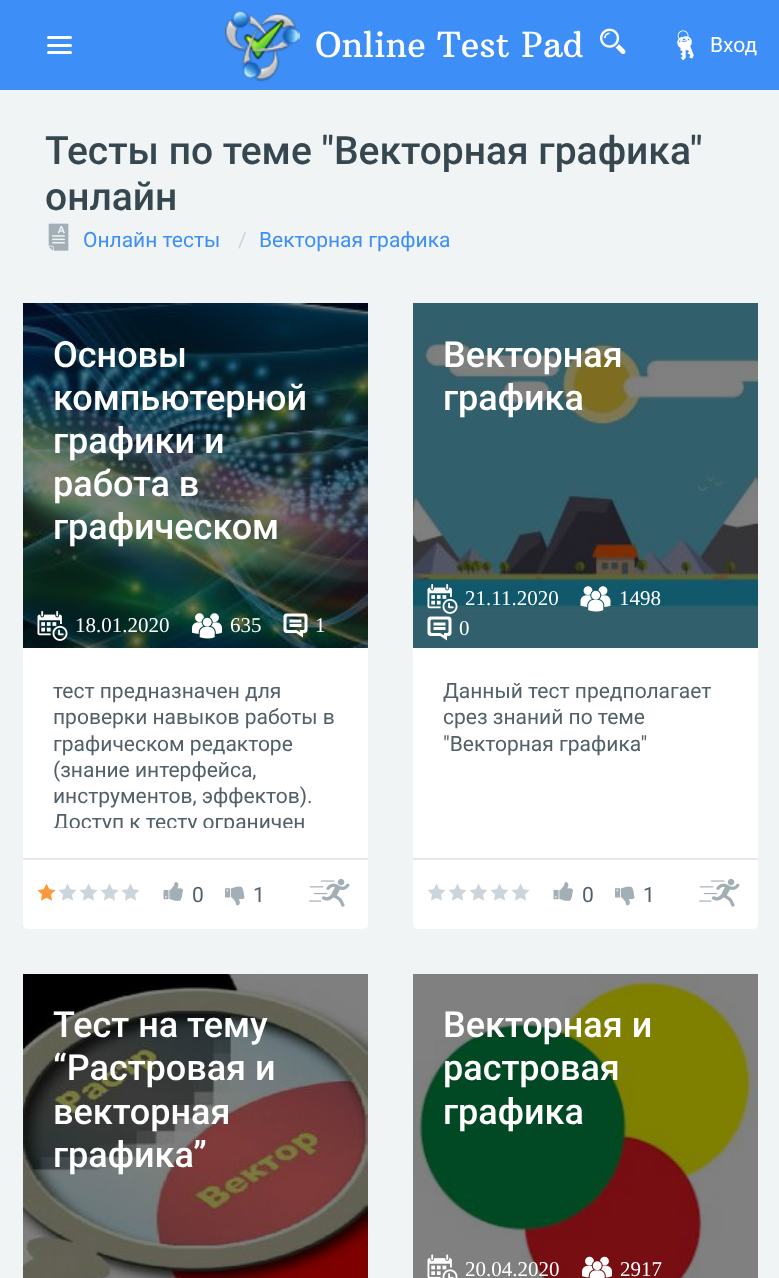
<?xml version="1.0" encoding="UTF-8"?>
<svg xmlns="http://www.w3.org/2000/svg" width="779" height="1278">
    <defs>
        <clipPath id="clip1"><rect x="53" y="678" width="285" height="150"/></clipPath>
    </defs>
    <rect width="100%" height="100%" fill="#3E8EF7"/>
    <rect x="47" y="36" width="25" height="3" rx="1.5" fill="#FFFFFF"/>
    <rect x="47" y="44" width="25" height="3" rx="1.5" fill="#FFFFFF"/>
    <rect x="47" y="51" width="25" height="3" rx="1.5" fill="#FFFFFF"/>
    <image x="225" y="10" width="75" height="72" href="img_01.png"/>
    <text x="315" y="57" font-family="Arbutus Slab" font-size="34.5" fill="#FFFFFF">Online Test Pad</text>
    <image x="600" y="28" width="26" height="27" href="img_02.png"/>
    <image x="677" y="30" width="17" height="31" href="img_03.png"/>
    <text x="710" y="52" font-family="Roboto" font-size="21" fill="#FFFFFF">Вход</text>
    <rect x="0" y="90" width="779" height="1188" fill="#F1F4F5"/>
    <text font-family="Roboto" font-size="39" font-weight="500" fill="#37474F">
        <tspan x="45" y="164">Тесты по теме "Векторная графика"</tspan>
        <tspan x="45" y="210">онлайн</tspan>
    </text>
    <image x="48" y="223" width="21" height="28" href="img_04.png"/>
    <text x="83" y="247" font-family="Roboto" font-size="21" fill="#3E8EF7">Онлайн тесты</text>
    <text x="238" y="247" font-family="Roboto" font-size="21" fill="#CCD5DB">/</text>
    <text x="259" y="247" font-family="Roboto" font-size="21" fill="#3E8EF7">Векторная графика</text>
    <rect x="23" y="303" width="345" height="626" rx="5" fill="#FFFFFF"/>
    <image x="23" y="303" width="345" height="345" href="img_05.png"/>
    <text font-family="Roboto" font-size="36" font-weight="500" fill="#FFFFFF">
        <tspan x="53" y="367">Основы</tspan>
        <tspan x="53" y="410">компьютерной</tspan>
        <tspan x="53" y="453">графики и</tspan>
        <tspan x="53" y="496">работа в</tspan>
        <tspan x="53" y="539">графическом</tspan>
    </text>
    <image x="37" y="610" width="31" height="31" href="img_06.png"/>
    <text x="75" y="632" font-family="Liberation Serif" font-size="21" fill="#FFFFFF">18.01.2020</text>
    <image x="192" y="613" width="30" height="26" href="img_07.png"/>
    <text x="230" y="632" font-family="Liberation Serif" font-size="21" fill="#FFFFFF">635</text>
    <image x="283" y="613" width="25" height="25" href="img_08.png"/>
    <text x="315" y="632" font-family="Liberation Serif" font-size="21" fill="#FFFFFF">1</text>
    <text font-family="Roboto" font-size="21" fill="#526069">
        <tspan x="53" y="698">тест предназначен для</tspan>
        <tspan x="53" y="724">проверки навыков работы в</tspan>
        <tspan x="53" y="751">графическом редакторе</tspan>
        <tspan x="53" y="777">(знание интерфейса,</tspan>
        <tspan x="53" y="803">инструментов, эффектов).</tspan>
    </text>
    <g clip-path="url(#clip1)">
        <text x="53" y="829" font-family="Roboto" font-size="21" fill="#526069">Доступ к тесту ограничен</text>
    </g>
    <rect x="23" y="858" width="345" height="2" fill="#E4EAEC"/>
    <image x="37" y="883" width="19" height="18" href="img_09.png"/>
    <image x="58" y="883" width="19" height="18" href="img_10.png"/>
    <image x="79" y="883" width="19" height="18" href="img_10.png"/>
    <image x="100" y="883" width="19" height="18" href="img_10.png"/>
    <image x="121" y="883" width="19" height="18" href="img_10.png"/>
    <image x="163" y="882" width="20" height="19" href="img_11.png"/>
    <text x="192" y="902" font-family="Roboto" font-size="21" fill="#526069">0</text>
    <image x="225" y="886" width="20" height="20" href="img_12.png"/>
    <text x="253" y="902" font-family="Roboto" font-size="21" fill="#526069">1</text>
    <image x="309" y="878" width="41" height="29" href="img_13.png"/>
    <rect x="413" y="303" width="345" height="626" rx="5" fill="#FFFFFF"/>
    <image x="413" y="303" width="345" height="345" href="img_14.png"/>
    <text font-family="Roboto" font-size="36" font-weight="500" fill="#FFFFFF">
        <tspan x="443" y="367">Векторная</tspan>
        <tspan x="443" y="410">графика</tspan>
    </text>
    <image x="427" y="583" width="31" height="31" href="img_15.png"/>
    <text x="465" y="605" font-family="Liberation Serif" font-size="21" fill="#FFFFFF">21.11.2020</text>
    <image x="580" y="586" width="31" height="26" href="img_16.png"/>
    <text x="619" y="605" font-family="Liberation Serif" font-size="21" fill="#FFFFFF">1498</text>
    <image x="427" y="616" width="25" height="25" href="img_17.png"/>
    <text x="459" y="635" font-family="Liberation Serif" font-size="21" fill="#FFFFFF">0</text>
    <text font-family="Roboto" font-size="21" fill="#526069">
        <tspan x="443" y="698">Данный тест предполагает</tspan>
        <tspan x="443" y="724">срез знаний по теме</tspan>
        <tspan x="443" y="751">"Векторная графика"</tspan>
    </text>
    <rect x="413" y="858" width="345" height="2" fill="#E4EAEC"/>
    <image x="427" y="883" width="19" height="18" href="img_10.png"/>
    <image x="448" y="883" width="19" height="18" href="img_10.png"/>
    <image x="469" y="883" width="19" height="18" href="img_10.png"/>
    <image x="490" y="883" width="19" height="18" href="img_10.png"/>
    <image x="511" y="883" width="19" height="18" href="img_10.png"/>
    <image x="553" y="882" width="20" height="19" href="img_11.png"/>
    <text x="582" y="902" font-family="Roboto" font-size="21" fill="#526069">0</text>
    <image x="615" y="886" width="20" height="20" href="img_12.png"/>
    <text x="643" y="902" font-family="Roboto" font-size="21" fill="#526069">1</text>
    <image x="699" y="878" width="41" height="29" href="img_13.png"/>
    <image x="23" y="974" width="345" height="304" href="img_18.png"/>
    <text font-family="Roboto" font-size="36" font-weight="500" fill="#FFFFFF">
        <tspan x="53" y="1037">Тест на тему</tspan>
        <tspan x="53" y="1080">“Растровая и</tspan>
        <tspan x="53" y="1124">векторная</tspan>
        <tspan x="53" y="1167">графика”</tspan>
    </text>
    <image x="413" y="974" width="345" height="304" href="img_19.png"/>
    <text font-family="Roboto" font-size="36" font-weight="500" fill="#FFFFFF">
        <tspan x="443" y="1037">Векторная и</tspan>
        <tspan x="443" y="1080">растровая</tspan>
        <tspan x="443" y="1124">графика</tspan>
    </text>
    <image x="427" y="1254" width="31" height="24" href="img_20.png"/>
    <text x="465" y="1276" font-family="Liberation Serif" font-size="21" fill="#FFFFFF">20.04.2020</text>
    <image x="582" y="1256" width="30" height="22" href="img_21.png"/>
    <text x="620" y="1276" font-family="Liberation Serif" font-size="21" fill="#FFFFFF">2917</text>
</svg>
